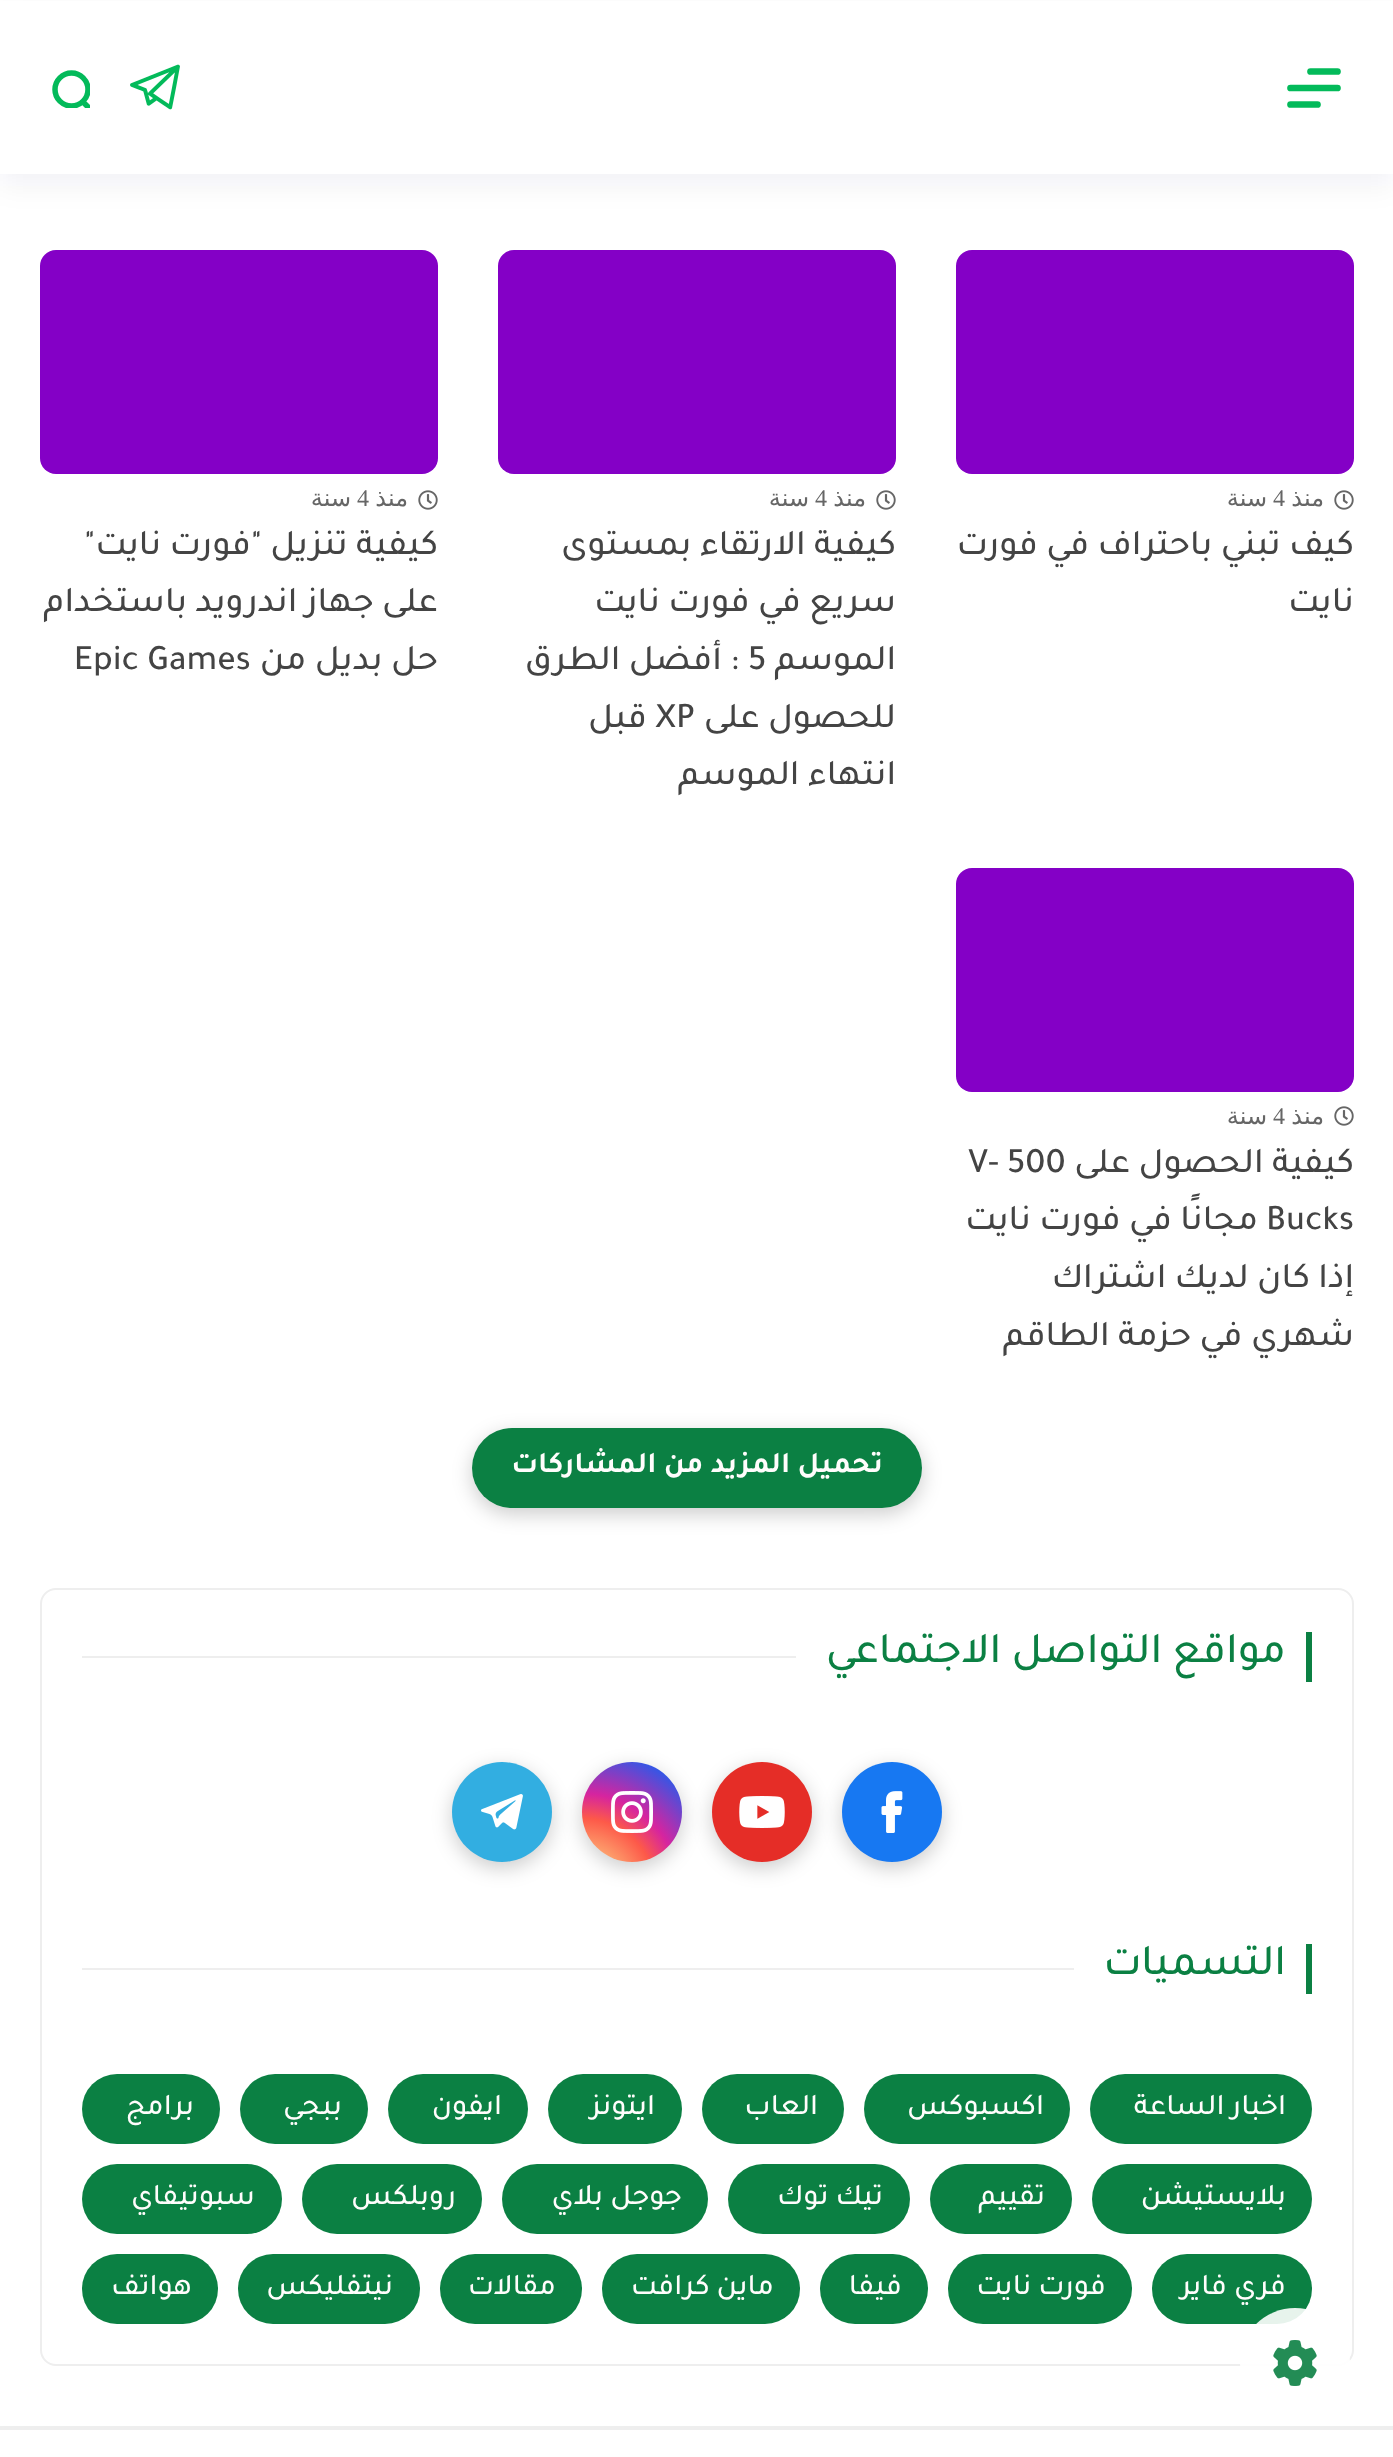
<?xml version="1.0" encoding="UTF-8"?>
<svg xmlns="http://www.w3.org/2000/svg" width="1393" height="2457">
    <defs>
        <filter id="blur1" x="-50%" y="-200%" width="200%" height="500%"><feGaussianBlur stdDeviation="14"/></filter>
        <clipPath id="clip1"><rect x="50" y="68" width="40" height="40"/></clipPath>
        <filter id="blur2" x="-50%" y="-200%" width="200%" height="500%"><feGaussianBlur stdDeviation="10"/></filter>
        <radialGradient id="g1" gradientUnits="userSpaceOnUse" cx="582" cy="1892" r="164"><stop offset="0" stop-color="#FDF497"/><stop offset="0.05" stop-color="#FDF497"/><stop offset="0.45" stop-color="#FD5949"/><stop offset="0.6" stop-color="#D6249F"/><stop offset="0.9" stop-color="#285AEB"/></radialGradient>
    </defs>
    <rect width="100%" height="100%" fill="#FFFFFF"/>
    <rect x="0" y="12" width="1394" height="174" fill="#09204C" fill-opacity="0.05" filter="url(#blur1)"/>
    <rect x="0" y="1" width="1393" height="173" fill="#FFFFFF"/>
    <path d="M 1290.5 104.5 H 1317.5 M 1290.5 88 H 1337.5 M 1310.5 71.5 H 1337.5" fill="none" stroke="#03BA5A" stroke-width="6.7" stroke-linecap="round" stroke-linejoin="round"/>
    <image x="130" y="64" width="50" height="46" href="img_01.png"/>
    <g clip-path="url(#clip1)">
        <circle cx="71.5" cy="89.5" r="16.5" fill="none" stroke="#03BA5A" stroke-width="5.5"/>
        <path d="M 83 102 L 89.5 108.5" fill="none" stroke="#03BA5A" stroke-width="5.5" stroke-linecap="round" stroke-linejoin="round"/>
    </g>
    <rect x="956" y="250" width="398" height="224" rx="16" fill="#8400C6"/>
    <image x="1334" y="490" width="20" height="20" href="img_02.png"/>
    <text x="1324" y="506" font-family="DejaVu Sans" font-size="24" direction="rtl" fill="#666666">منذ</text>
    <text x="1273" y="506" font-family="Liberation Serif" font-size="24" fill="#666666">4</text>
    <text x="1267" y="506" font-family="DejaVu Sans" font-size="24" direction="rtl" fill="#666666">سنة</text>
    <text font-family="Tajawal" font-size="36" font-weight="500" direction="rtl" fill="#444444">
        <tspan x="1354" y="554">كيف تبني باحتراف في فورت</tspan>
        <tspan x="1354" y="611">نايت</tspan>
    </text>
    <rect x="498" y="250" width="398" height="224" rx="16" fill="#8400C6"/>
    <image x="876" y="490" width="20" height="20" href="img_02.png"/>
    <text x="866" y="506" font-family="DejaVu Sans" font-size="24" direction="rtl" fill="#666666">منذ</text>
    <text x="815" y="506" font-family="Liberation Serif" font-size="24" fill="#666666">4</text>
    <text x="809" y="506" font-family="DejaVu Sans" font-size="24" direction="rtl" fill="#666666">سنة</text>
    <text font-family="Tajawal" font-size="36" font-weight="500" direction="rtl" fill="#444444">
        <tspan x="896" y="554">كيفية الارتقاء بمستوى</tspan>
        <tspan x="896" y="611">سريع في فورت نايت</tspan>
        <tspan x="896" y="669">الموسم</tspan>
    </text>
    <text x="748" y="669" font-family="Tajawal" font-size="36" font-weight="500" fill="#444444">5</text>
    <text x="739" y="669" font-family="Tajawal" font-size="36" font-weight="500" direction="rtl" fill="#444444">: أفضل الطرق</text>
    <text x="896" y="727" font-family="Tajawal" font-size="36" font-weight="500" direction="rtl" fill="#444444">للحصول على</text>
    <text x="655" y="727" font-family="Tajawal" font-size="36" font-weight="500" fill="#444444">XP</text>
    <text x="647" y="727" font-family="Tajawal" font-size="36" font-weight="500" direction="rtl" fill="#444444">قبل</text>
    <text x="896" y="784" font-family="Tajawal" font-size="36" font-weight="500" direction="rtl" fill="#444444">انتهاء الموسم</text>
    <rect x="40" y="250" width="398" height="224" rx="16" fill="#8400C6"/>
    <image x="418" y="490" width="20" height="20" href="img_02.png"/>
    <text x="408" y="506" font-family="DejaVu Sans" font-size="24" direction="rtl" fill="#666666">منذ</text>
    <text x="357" y="506" font-family="Liberation Serif" font-size="24" fill="#666666">4</text>
    <text x="351" y="506" font-family="DejaVu Sans" font-size="24" direction="rtl" fill="#666666">سنة</text>
    <text font-family="Tajawal" font-size="36" font-weight="500" direction="rtl" fill="#444444">
        <tspan x="438" y="554">كيفية تنزيل "فورت نايت"</tspan>
        <tspan x="438" y="611">على جهاز اندرويد باستخدام</tspan>
        <tspan x="438" y="669">حل بديل من</tspan>
    </text>
    <text x="74" y="669" font-family="Tajawal" font-size="36" font-weight="500" fill="#444444">Epic Games</text>
    <rect x="956" y="868" width="398" height="224" rx="16" fill="#8400C6"/>
    <image x="1334" y="1106" width="20" height="20" href="img_02.png"/>
    <text x="1324" y="1124" font-family="DejaVu Sans" font-size="24" direction="rtl" fill="#666666">منذ</text>
    <text x="1273" y="1124" font-family="Liberation Serif" font-size="24" fill="#666666">4</text>
    <text x="1267" y="1124" font-family="DejaVu Sans" font-size="24" direction="rtl" fill="#666666">سنة</text>
    <text x="1354" y="1172" font-family="Tajawal" font-size="36" font-weight="500" direction="rtl" fill="#444444">كيفية الحصول على</text>
    <text x="968" y="1172" font-family="Tajawal" font-size="36" font-weight="500" fill="#444444">V- 500</text>
    <text x="1266" y="1229" font-family="Tajawal" font-size="36" font-weight="500" fill="#444444">Bucks</text>
    <text x="1258" y="1229" font-family="Tajawal" font-size="36" font-weight="500" direction="rtl" fill="#444444">مجانًا في فورت نايت</text>
    <text font-family="Tajawal" font-size="36" font-weight="500" direction="rtl" fill="#444444">
        <tspan x="1354" y="1287">إذا كان لديك اشتراك</tspan>
        <tspan x="1354" y="1345">شهري في حزمة الطاقم</tspan>
    </text>
    <rect x="472" y="1434" width="450" height="80" rx="40" fill="#000000" fill-opacity="0.2" filter="url(#blur2)"/>
    <rect x="472" y="1428" width="450" height="80" rx="40" fill="#0B8043"/>
    <text x="883" y="1472" font-family="Tajawal" font-size="30" font-weight="700" direction="rtl" fill="#FFFDFC">تحميل المزيد من المشاركات</text>
    <rect x="41" y="1589" width="1312" height="776" rx="15" fill="none" stroke="#EEEEEE" stroke-width="2"/>
    <rect x="1306" y="1632" width="6" height="50" fill="#0B8043"/>
    <text x="1286" y="1662" font-family="Tajawal" font-size="44" font-weight="500" direction="rtl" fill="#0B8043">مواقع التواصل الاجتماعي</text>
    <rect x="82" y="1656" width="714" height="2" fill="#EEEEEE"/>
    <rect x="842" y="1768" width="100" height="100" rx="50" fill="#000000" fill-opacity="0.2" filter="url(#blur2)"/>
    <circle cx="892" cy="1812" r="50" fill="#1778F2"/>
    <image x="881" y="1791" width="22" height="42" href="img_03.png"/>
    <rect x="712" y="1768" width="100" height="100" rx="50" fill="#000000" fill-opacity="0.2" filter="url(#blur2)"/>
    <circle cx="762" cy="1812" r="50" fill="#E52D27"/>
    <image x="739" y="1796" width="46" height="32" href="img_04.png"/>
    <rect x="582" y="1768" width="100" height="100" rx="50" fill="#000000" fill-opacity="0.2" filter="url(#blur2)"/>
    <circle cx="632" cy="1812" r="50" fill="url(#g1)"/>
    <image x="611" y="1791" width="42" height="42" href="img_05.png"/>
    <rect x="452" y="1768" width="100" height="100" rx="50" fill="#000000" fill-opacity="0.2" filter="url(#blur2)"/>
    <circle cx="502" cy="1812" r="50" fill="#32AEE1"/>
    <image x="481" y="1794" width="42" height="36" href="img_06.png"/>
    <rect x="1306" y="1944" width="6" height="50" fill="#0B8043"/>
    <text x="1286" y="1974" font-family="Tajawal" font-size="44" font-weight="500" direction="rtl" fill="#0B8043">التسميات</text>
    <rect x="82" y="1968" width="992" height="2" fill="#EEEEEE"/>
    <rect x="1090" y="2074" width="222" height="70" rx="35" fill="#0B8043"/>
    <text x="1286" y="2114" font-family="Tajawal" font-size="30" font-weight="500" direction="rtl" fill="#FFFDFC">اخبار الساعة</text>
    <rect x="864" y="2074" width="206" height="70" rx="35" fill="#0B8043"/>
    <text x="1044" y="2114" font-family="Tajawal" font-size="30" font-weight="500" direction="rtl" fill="#FFFDFC">اكسبوكس</text>
    <rect x="702" y="2074" width="142" height="70" rx="35" fill="#0B8043"/>
    <text x="818" y="2114" font-family="Tajawal" font-size="30" font-weight="500" direction="rtl" fill="#FFFDFC">العاب</text>
    <rect x="548" y="2074" width="134" height="70" rx="35" fill="#0B8043"/>
    <text x="655" y="2114" font-family="Tajawal" font-size="30" font-weight="500" direction="rtl" fill="#FFFDFC">ايتونز</text>
    <rect x="388" y="2074" width="140" height="70" rx="35" fill="#0B8043"/>
    <text x="502" y="2114" font-family="Tajawal" font-size="30" font-weight="500" direction="rtl" fill="#FFFDFC">ايفون</text>
    <rect x="240" y="2074" width="128" height="70" rx="35" fill="#0B8043"/>
    <text x="342" y="2114" font-family="Tajawal" font-size="30" font-weight="500" direction="rtl" fill="#FFFDFC">ببجي</text>
    <rect x="82" y="2074" width="138" height="70" rx="35" fill="#0B8043"/>
    <text x="194" y="2114" font-family="Tajawal" font-size="30" font-weight="500" direction="rtl" fill="#FFFDFC">برامج</text>
    <rect x="1092" y="2164" width="220" height="70" rx="35" fill="#0B8043"/>
    <text x="1286" y="2204" font-family="Tajawal" font-size="30" font-weight="500" direction="rtl" fill="#FFFDFC">بلايستيشن</text>
    <rect x="930" y="2164" width="142" height="70" rx="35" fill="#0B8043"/>
    <text x="1045" y="2204" font-family="Tajawal" font-size="30" font-weight="500" direction="rtl" fill="#FFFDFC">تقييم</text>
    <rect x="728" y="2164" width="182" height="70" rx="35" fill="#0B8043"/>
    <text x="883" y="2204" font-family="Tajawal" font-size="30" font-weight="500" direction="rtl" fill="#FFFDFC">تيك توك</text>
    <rect x="502" y="2164" width="206" height="70" rx="35" fill="#0B8043"/>
    <text x="682" y="2204" font-family="Tajawal" font-size="30" font-weight="500" direction="rtl" fill="#FFFDFC">جوجل بلاي</text>
    <rect x="302" y="2164" width="180" height="70" rx="35" fill="#0B8043"/>
    <text x="456" y="2204" font-family="Tajawal" font-size="30" font-weight="500" direction="rtl" fill="#FFFDFC">روبلكس</text>
    <rect x="82" y="2164" width="200" height="70" rx="35" fill="#0B8043"/>
    <text x="255" y="2204" font-family="Tajawal" font-size="30" font-weight="500" direction="rtl" fill="#FFFDFC">سبوتيفاي</text>
    <rect x="1152" y="2254" width="160" height="70" rx="35" fill="#0B8043"/>
    <text x="1286" y="2294" font-family="Tajawal" font-size="30" font-weight="500" direction="rtl" fill="#FFFDFC">فري فاير</text>
    <rect x="948" y="2254" width="184" height="70" rx="35" fill="#0B8043"/>
    <text x="1106" y="2294" font-family="Tajawal" font-size="30" font-weight="500" direction="rtl" fill="#FFFDFC">فورت نايت</text>
    <rect x="820" y="2254" width="108" height="70" rx="35" fill="#0B8043"/>
    <text x="902" y="2294" font-family="Tajawal" font-size="30" font-weight="500" direction="rtl" fill="#FFFDFC">فيفا</text>
    <rect x="602" y="2254" width="198" height="70" rx="35" fill="#0B8043"/>
    <text x="774" y="2294" font-family="Tajawal" font-size="30" font-weight="500" direction="rtl" fill="#FFFDFC">ماين كرافت</text>
    <rect x="440" y="2254" width="142" height="70" rx="35" fill="#0B8043"/>
    <text x="556" y="2294" font-family="Tajawal" font-size="30" font-weight="500" direction="rtl" fill="#FFFDFC">مقالات</text>
    <rect x="238" y="2254" width="182" height="70" rx="35" fill="#0B8043"/>
    <text x="393" y="2294" font-family="Tajawal" font-size="30" font-weight="500" direction="rtl" fill="#FFFDFC">نيتفليكس</text>
    <rect x="82" y="2254" width="136" height="70" rx="35" fill="#0B8043"/>
    <text x="192" y="2294" font-family="Tajawal" font-size="30" font-weight="500" direction="rtl" fill="#FFFDFC">هواتف</text>
    <rect x="0" y="2426" width="1393" height="4" fill="#EEEEEE"/>
    <circle cx="1295" cy="2363" r="55" fill="#FFFFFF" fill-opacity="0.9"/>
    <image x="1273" y="2340" width="44" height="46" href="img_07.png"/>
</svg>
